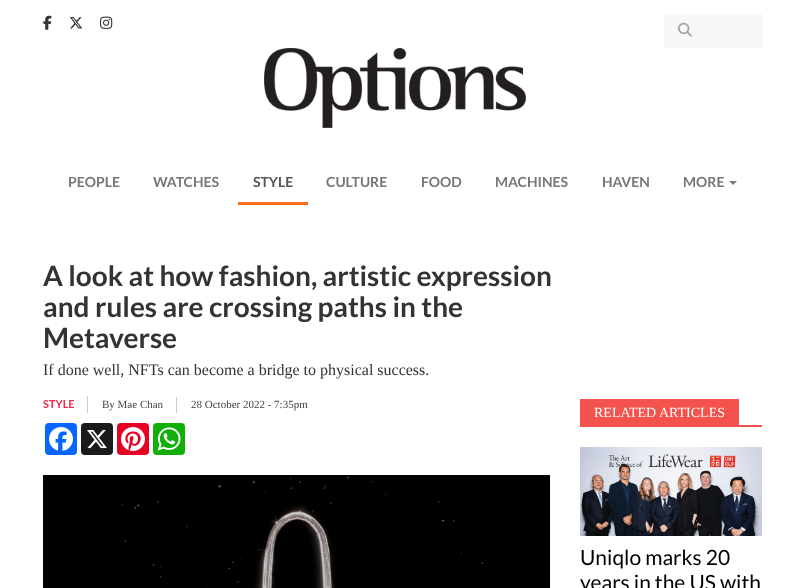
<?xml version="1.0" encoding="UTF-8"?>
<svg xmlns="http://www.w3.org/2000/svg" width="805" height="588">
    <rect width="100%" height="100%" fill="#FFFFFF"/>
    <image x="43" y="15" width="9" height="15" href="img_01.png"/>
    <image x="69" y="17" width="14" height="12" href="img_02.png"/>
    <image x="100" y="16" width="13" height="13" href="img_03.png"/>
    <rect x="664" y="14" width="99" height="34" fill="#F8F8F8"/>
    <image x="678" y="22" width="14" height="15" href="img_04.png"/>
    <image x="264" y="48" width="262" height="80" href="img_05.png"/>
    <text x="68" y="187" font-family="Lato" font-size="14" font-weight="700" fill="#777777">PEOPLE</text>
    <text x="153" y="187" font-family="Lato" font-size="14" font-weight="700" fill="#777777">WATCHES</text>
    <rect x="238" y="202" width="70" height="3" fill="#F46F22"/>
    <text x="253" y="187" font-family="Lato" font-size="14" font-weight="700" fill="#555555">STYLE</text>
    <text x="326" y="187" font-family="Lato" font-size="14" font-weight="700" fill="#777777">CULTURE</text>
    <text x="421" y="187" font-family="Lato" font-size="14" font-weight="700" fill="#777777">FOOD</text>
    <text x="495" y="187" font-family="Lato" font-size="14" font-weight="700" fill="#777777">MACHINES</text>
    <text x="602" y="187" font-family="Lato" font-size="14" font-weight="700" fill="#777777">HAVEN</text>
    <text x="683" y="187" font-family="Lato" font-size="14" font-weight="700" fill="#777777">MORE</text>
    <path d="M 729 181 H 737 L 733 185 Z" fill="#777777"/>
    <text font-family="Lato" font-size="28" font-weight="700" fill="#333333">
        <tspan x="43" y="286">A look at how fashion, artistic expression</tspan>
        <tspan x="43" y="317">and rules are crossing paths in the</tspan>
        <tspan x="43" y="348">Metaverse</tspan>
    </text>
    <text x="43" y="375" font-family="Liberation Serif" font-size="16" fill="#333333">If done well, NFTs can become a bridge to physical success.</text>
    <rect x="87" y="396" width="1" height="17" fill="#CCCCCC"/>
    <text x="43" y="408" font-family="Lato" font-size="11" font-weight="700" fill="#EA2E49">STYLE</text>
    <rect x="176" y="397" width="1" height="16" fill="#CCCCCC"/>
    <text x="102" y="408" font-family="Liberation Serif" font-size="11" fill="#444444">By Mae Chan</text>
    <text x="191" y="408" font-family="Liberation Serif" font-size="11" fill="#444444">28 October 2022 - 7:35pm</text>
    <rect x="45" y="423" width="32" height="32" rx="4" fill="#0866FF"/>
    <image x="49" y="427" width="24" height="24" href="img_06.png"/>
    <rect x="81" y="423" width="32" height="32" rx="4" fill="#1A1A1A"/>
    <image x="87" y="430" width="20" height="19" href="img_07.png"/>
    <rect x="117" y="423" width="32" height="32" rx="4" fill="#E60023"/>
    <image x="121" y="427" width="24" height="24" href="img_08.png"/>
    <rect x="153" y="423" width="32" height="32" rx="4" fill="#12AF0A"/>
    <image x="157" y="427" width="24" height="24" href="img_09.png"/>
    <image x="43" y="475" width="507" height="113" href="img_10.png"/>
    <rect x="580" y="399" width="159" height="28" fill="#F4524D"/>
    <text x="594" y="417" font-family="Liberation Serif" font-size="14" fill="#FFFFFF">RELATED ARTICLES</text>
    <rect x="739" y="425" width="23" height="2" fill="#F4524D"/>
    <image x="580" y="447" width="182" height="89" href="img_11.png"/>
    <text font-family="Lato" font-size="21" fill="#000000">
        <tspan x="580" y="565">Uniqlo marks 20</tspan>
        <tspan x="580" y="590">years in the US with</tspan>
    </text>
</svg>
